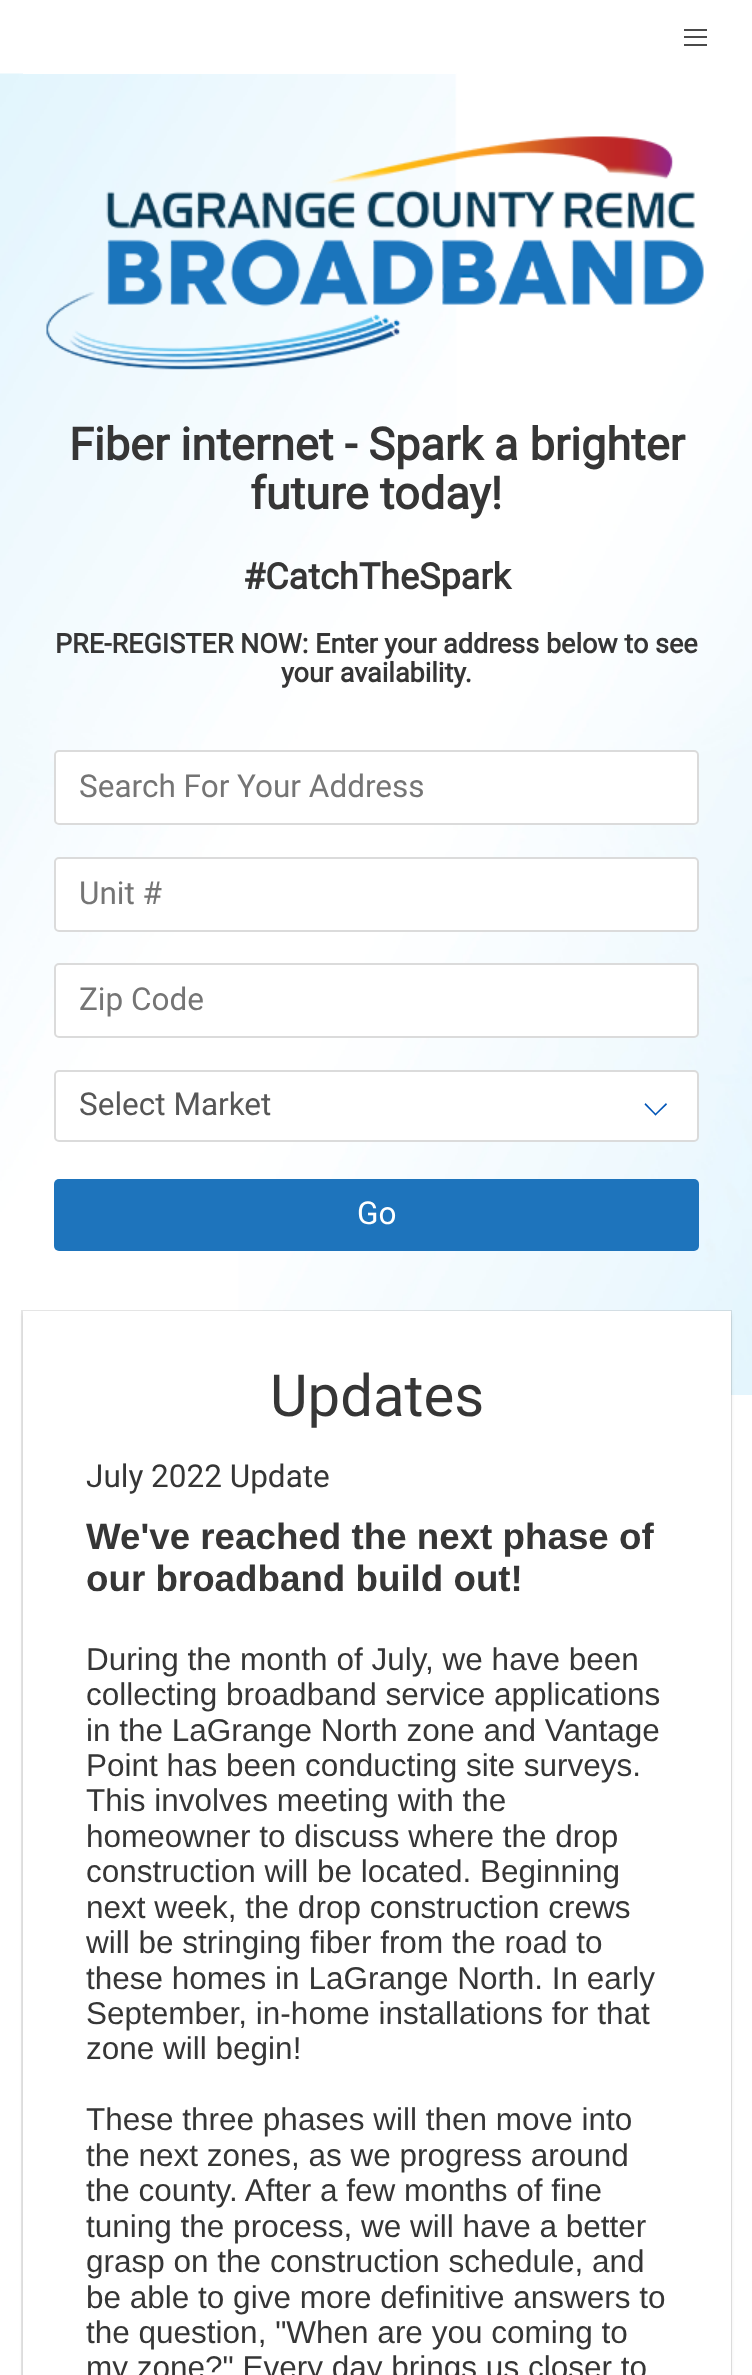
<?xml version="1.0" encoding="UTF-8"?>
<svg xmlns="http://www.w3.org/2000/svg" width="752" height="2375">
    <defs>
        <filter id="blur1" x="-50%" y="-200%" width="200%" height="500%"><feGaussianBlur stdDeviation="2"/></filter>
    </defs>
    <rect width="100%" height="100%" fill="#FFFFFF"/>
    <image x="0" y="73" width="752" height="1322" href="img_01.png"/>
    <rect x="23" y="73" width="433" height="1" fill="#FFFFFF"/>
    <rect x="684" y="29" width="23" height="2" fill="#4A4A4A"/>
    <rect x="684" y="36" width="23" height="2" fill="#4A4A4A"/>
    <rect x="684" y="44" width="23" height="2" fill="#4A4A4A"/>
    <image x="46" y="136" width="658" height="234" href="img_02.png"/>
    <text x="69" y="460" font-family="Roboto" font-size="45" font-weight="700" fill="#363636">Fiber internet - Spark a brighter</text>
    <text x="250" y="509" font-family="Roboto" font-size="45" font-weight="700" fill="#363636">future today!</text>
    <text x="243" y="589" font-family="Roboto" font-size="36" font-weight="700" fill="#363636">#CatchTheSpark</text>
    <text x="55" y="653" font-family="Roboto" font-size="27" font-weight="700" fill="#363636">PRE-REGISTER NOW: Enter your address below to see</text>
    <text x="281" y="682" font-family="Roboto" font-size="27" font-weight="700" fill="#363636">your availability.</text>
    <rect x="55" y="751" width="643" height="73" rx="4" fill="#FFFFFF" stroke="#DBDBDB" stroke-width="2"/>
    <text x="79" y="797" font-family="Roboto" font-size="31.5" fill="#757575">Search For Your Address</text>
    <rect x="55" y="858" width="643" height="73" rx="4" fill="#FFFFFF" stroke="#DBDBDB" stroke-width="2"/>
    <text x="79" y="904" font-family="Roboto" font-size="31.5" fill="#757575">Unit #</text>
    <rect x="55" y="964" width="643" height="73" rx="4" fill="#FFFFFF" stroke="#DBDBDB" stroke-width="2"/>
    <text x="79" y="1010" font-family="Roboto" font-size="31.5" fill="#757575">Zip Code</text>
    <rect x="55" y="1071" width="643" height="70" rx="4" fill="#FFFFFF" stroke="#DBDBDB" stroke-width="2"/>
    <text x="79" y="1115" font-family="Roboto" font-size="31.5" fill="#575757">Select Market</text>
    <path d="M 654.5 1114.5 L 666 1103 L 667 1104.5 L 655.5 1115.5 Z" fill="#0055B7"/>
    <path d="M 644.5 1104.5 L 645.5 1103 L 656.5 1114.5 L 655.5 1115.5 Z" fill="#0055B7"/>
    <rect x="54" y="1179" width="645" height="72" rx="5" fill="#1E74BC"/>
    <text x="357" y="1224" font-family="Roboto" font-size="31.5" fill="#FFFFFF">Go</text>
    <rect x="22" y="1311" width="709" height="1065" fill="none" stroke="#0A0A0A" stroke-opacity="0.1" stroke-width="2"/>
    <rect x="23" y="1314" width="708" height="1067" fill="#0A0A0A" fill-opacity="0.1" filter="url(#blur1)"/>
    <rect x="23" y="1311" width="708" height="1064" fill="#FFFFFF"/>
    <text x="270" y="1416" font-family="Roboto" font-size="58" fill="#363636">Updates</text>
    <text x="86" y="1487" font-family="Roboto" font-size="31.5" fill="#363636">July 2022 Update</text>
    <text font-family="Liberation Sans" font-size="36.75" font-weight="700" fill="#363636">
        <tspan x="86" y="1549">We've reached the next phase of</tspan>
        <tspan x="86" y="1591">our broadband build out!</tspan>
    </text>
    <text font-family="Liberation Sans" font-size="31.5" fill="#363636">
        <tspan x="86" y="1670">During the month of July, we have been</tspan>
        <tspan x="86" y="1705">collecting broadband service applications</tspan>
        <tspan x="86" y="1741">in the LaGrange North zone and Vantage</tspan>
        <tspan x="86" y="1776">Point has been conducting site surveys.</tspan>
        <tspan x="86" y="1811">This involves meeting with the</tspan>
        <tspan x="86" y="1847">homeowner to discuss where the drop</tspan>
        <tspan x="86" y="1882">construction will be located. Beginning</tspan>
        <tspan x="86" y="1918">next week, the drop construction crews</tspan>
        <tspan x="86" y="1953">will be stringing fiber from the road to</tspan>
        <tspan x="86" y="1989">these homes in LaGrange North. In early</tspan>
        <tspan x="86" y="2024">September, in-home installations for that</tspan>
        <tspan x="86" y="2059">zone will begin!</tspan>
    </text>
    <text font-family="Liberation Sans" font-size="31.5" fill="#363636">
        <tspan x="86" y="2130">These three phases will then move into</tspan>
        <tspan x="86" y="2166">the next zones, as we progress around</tspan>
        <tspan x="86" y="2201">the county. After a few months of fine</tspan>
        <tspan x="86" y="2237">tuning the process, we will have a better</tspan>
        <tspan x="86" y="2272">grasp on the construction schedule, and</tspan>
        <tspan x="86" y="2308">be able to give more definitive answers to</tspan>
        <tspan x="86" y="2343">the question, "When are you coming to</tspan>
        <tspan x="86" y="2378">my zone?" Every day brings us closer to</tspan>
    </text>
</svg>
